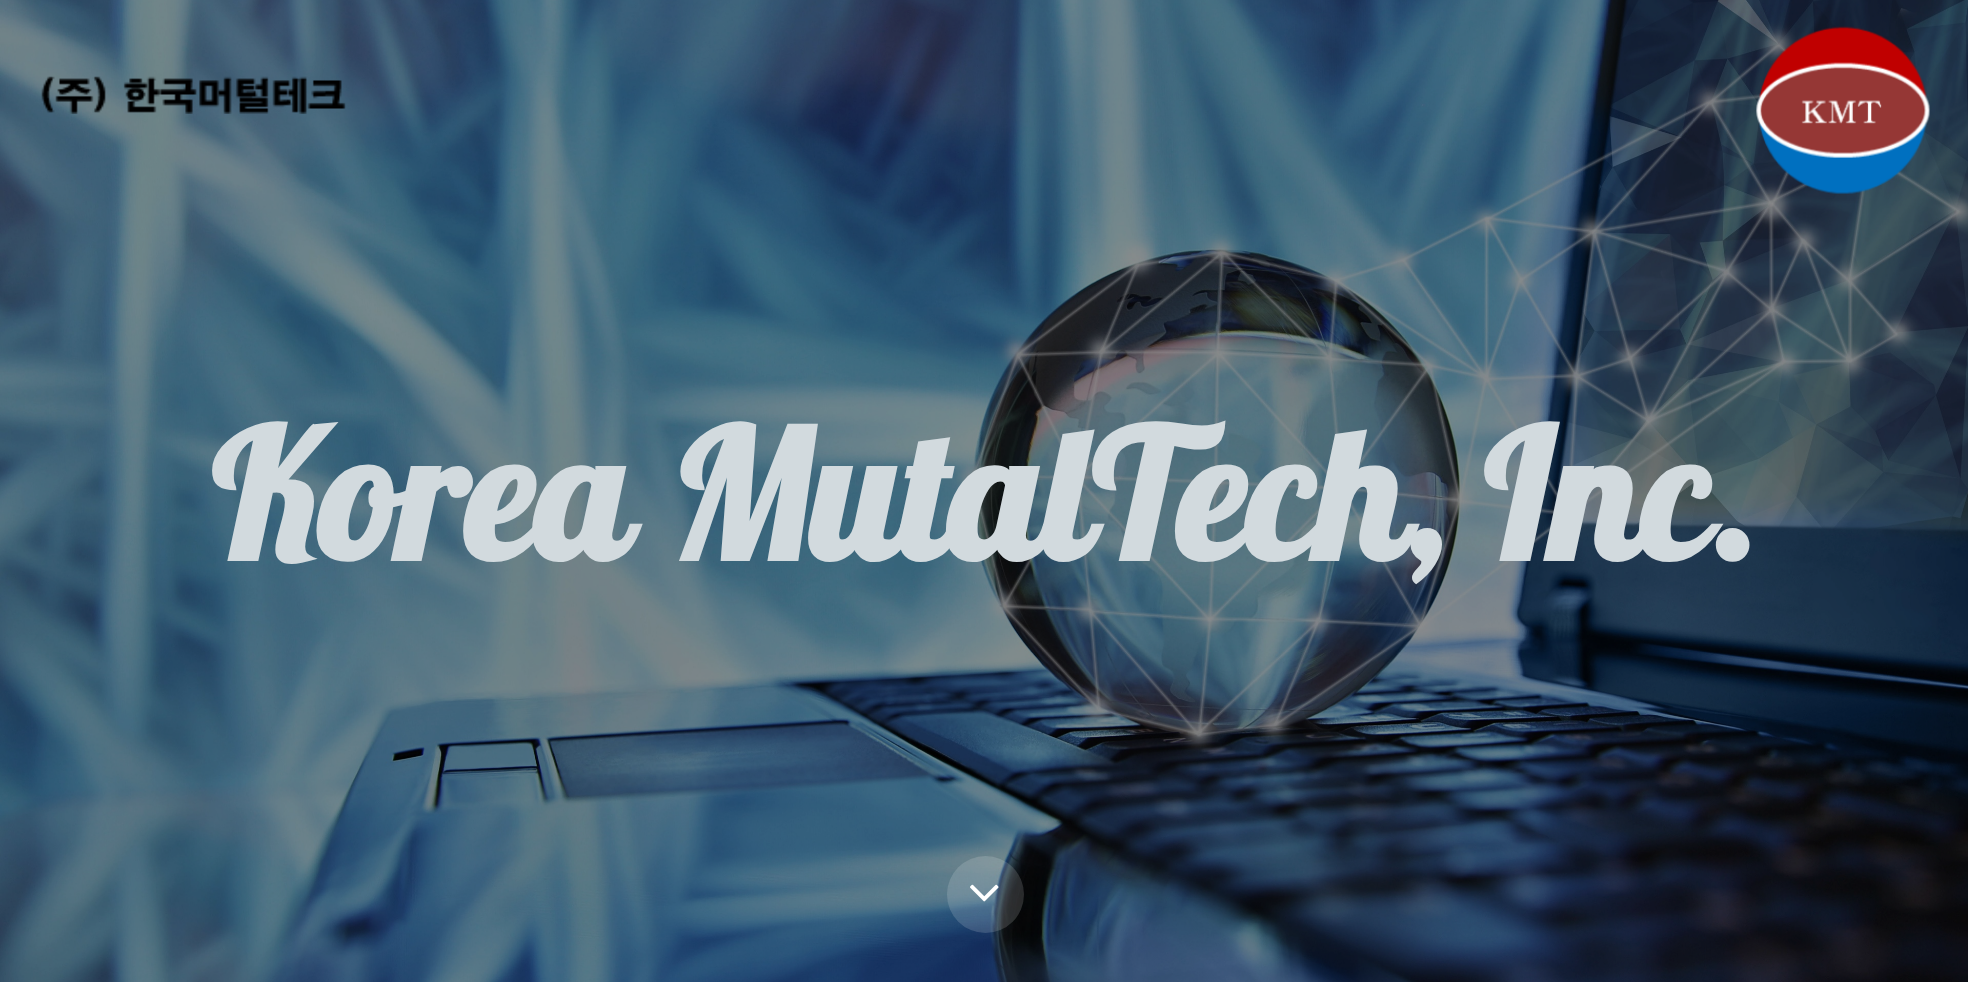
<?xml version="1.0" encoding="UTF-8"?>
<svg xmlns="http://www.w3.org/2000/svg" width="1968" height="982">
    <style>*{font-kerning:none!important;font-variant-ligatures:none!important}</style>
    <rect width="100%" height="100%" fill="#FFFFFF"/>
    <image x="0" y="0" width="1968" height="982" href="img_03.png"/>
    <image x="41" y="76" width="305" height="38" href="img_01.png"/>
    <image x="1756" y="26" width="174" height="168" href="img_02.png"/>
    <text x="211" y="561" font-family="Lobster" font-size="179.75" font-weight="700" fill="#D2DADE">Korea MutalTech,</text>
    <text x="1483" y="561" font-family="Lobster" font-size="179.75" font-weight="700" fill="#D2DADE">Inc.</text>
    <circle cx="985.5" cy="894.5" r="38.5" fill="#FFFFFF" fill-opacity="0.15"/>
    <image x="970" y="884" width="29" height="18" href="img_04.png"/>
</svg>
